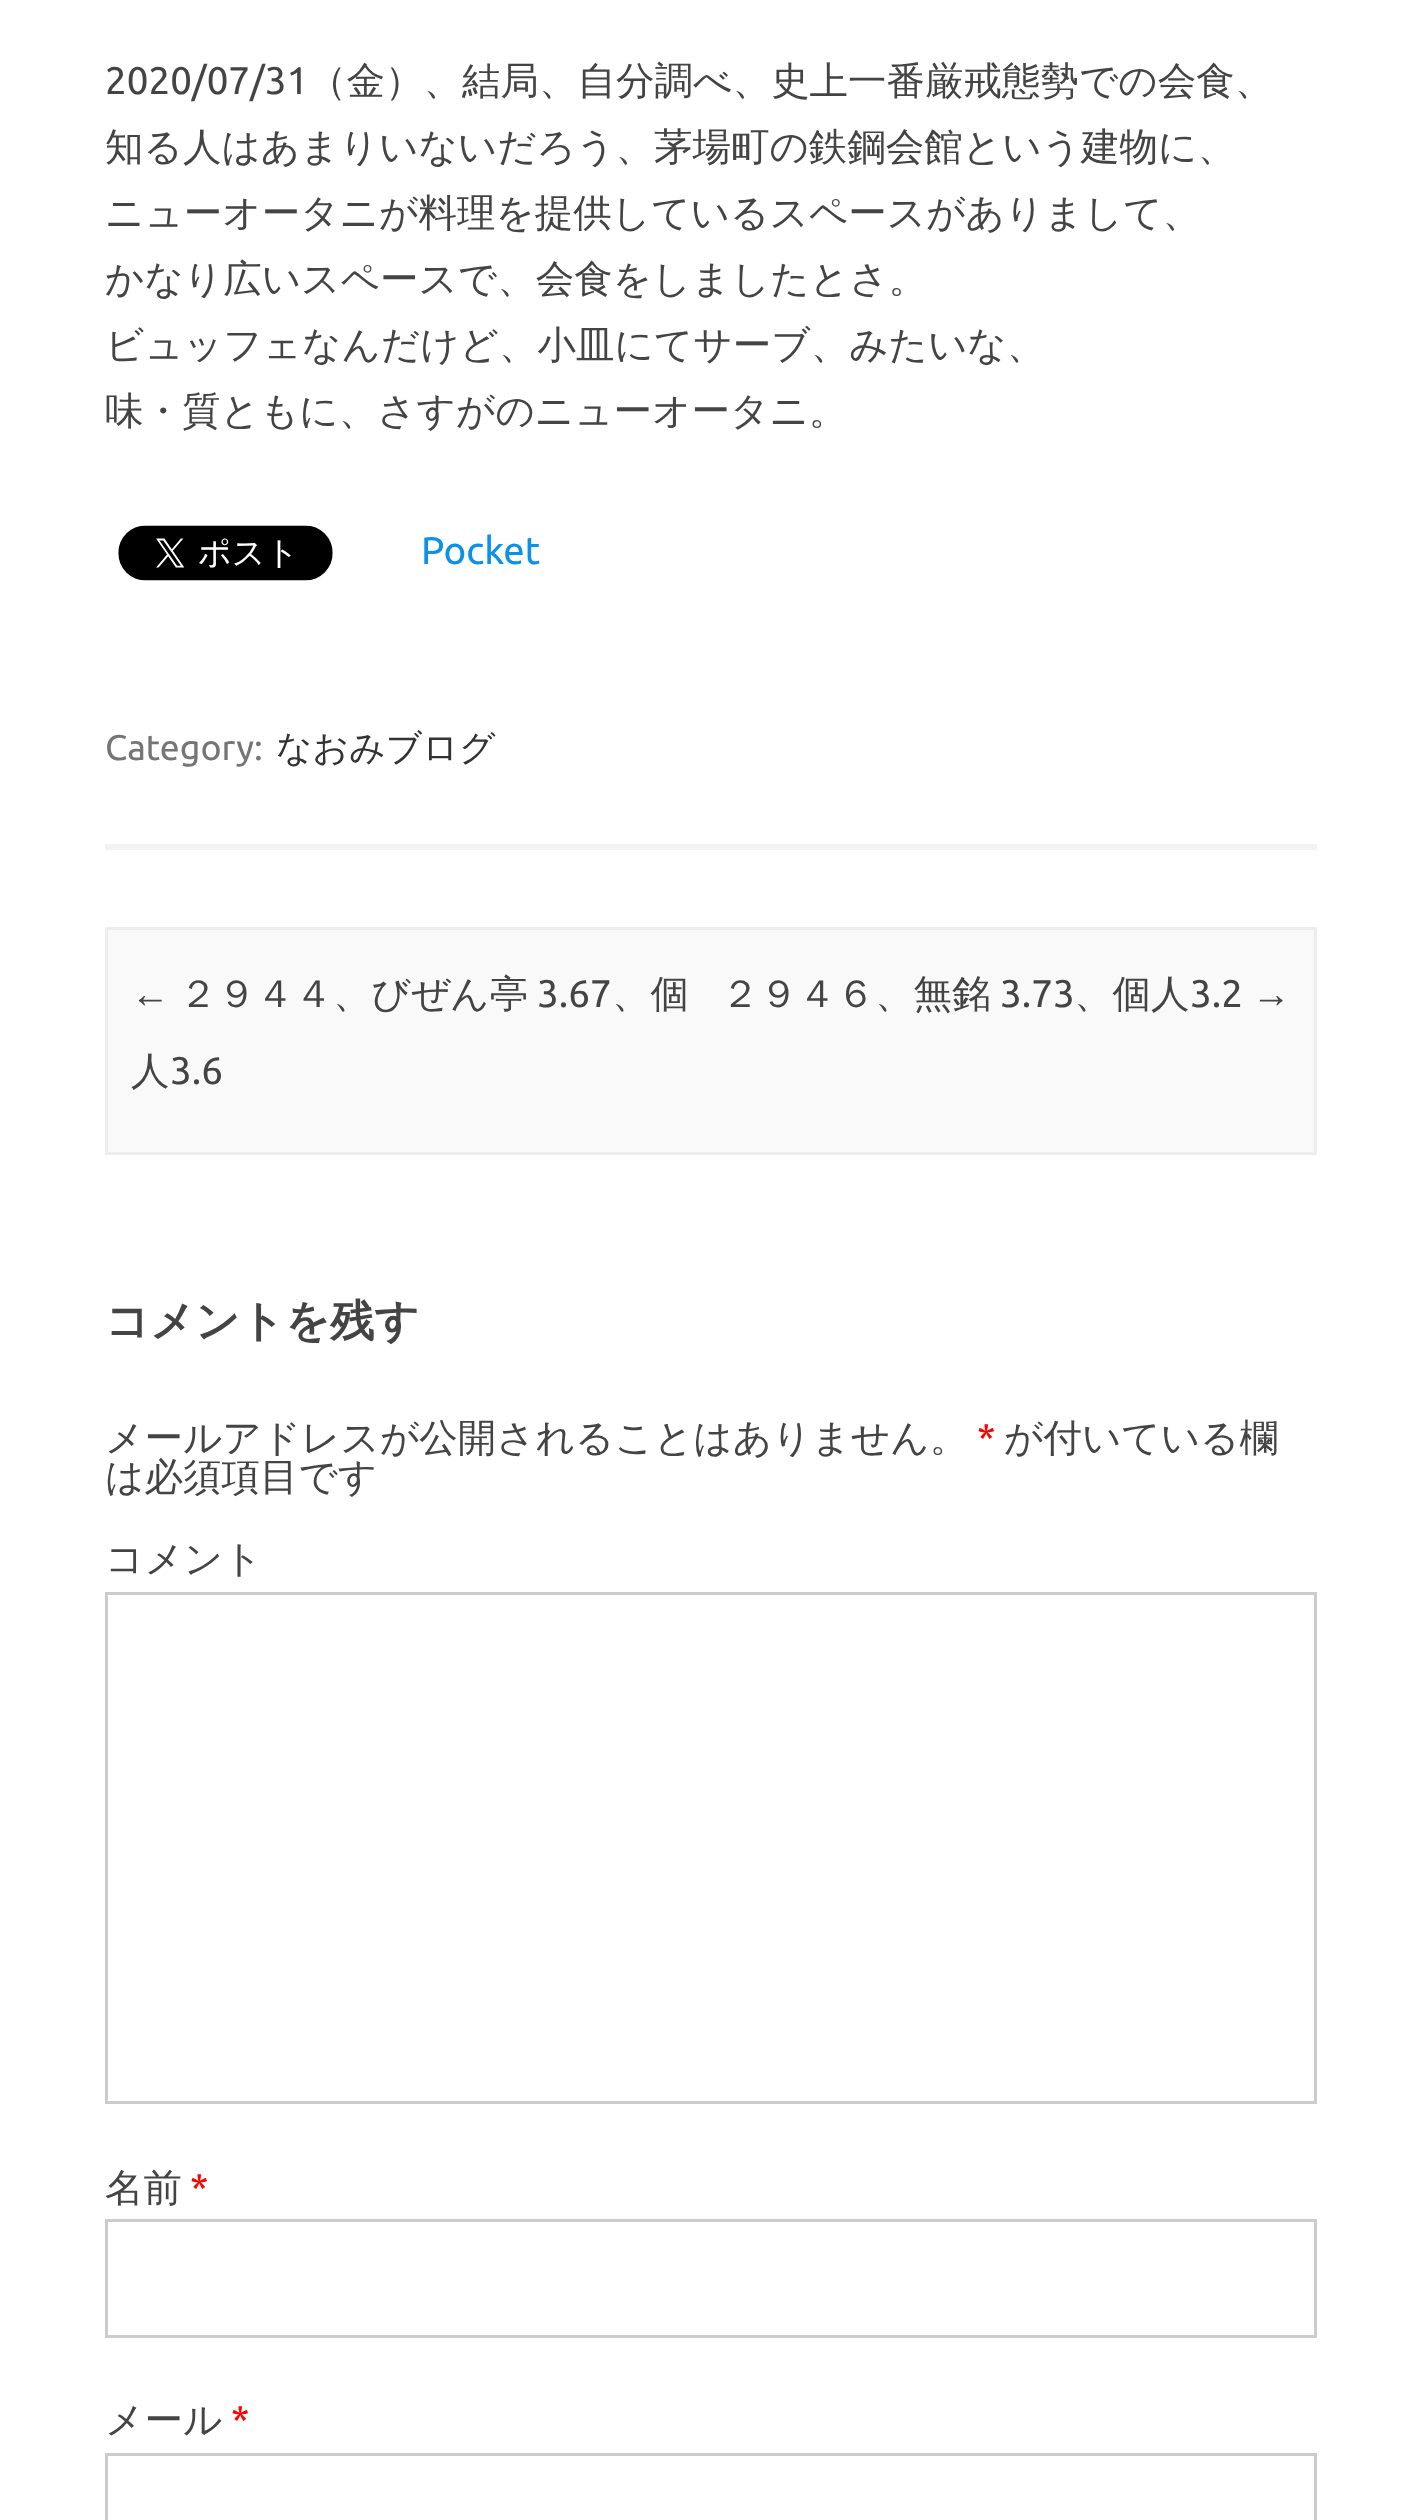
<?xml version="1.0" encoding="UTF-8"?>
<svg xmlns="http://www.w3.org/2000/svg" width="1421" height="2520">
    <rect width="100%" height="100%" fill="#FFFFFF"/>
    <rect x="105" y="844" width="1212" height="6" fill="#F3F3F3"/>
    <text x="105" y="94" font-family="Ubuntu" font-size="38.5" fill="#444444">2020/07/31</text>
    <text x="308" y="94" font-family="WenQuanYi Zen Hei" font-size="38.5" font-weight="500" fill="#444444">（金）、結局、自分調べ、史上一番厳戒態勢での会食、</text>
    <text font-family="WenQuanYi Zen Hei" font-size="38.5" font-weight="500" fill="#444444">
        <tspan x="105" y="160">知る人はあまりいないだろう、茅場町の鉄鋼会館という建物に、</tspan>
        <tspan x="105" y="226">ニューオータニが料理を提供しているスペースがありまして、</tspan>
        <tspan x="105" y="292">かなり広いスペースで、会食をしましたとさ。</tspan>
        <tspan x="105" y="358">ビュッフェなんだけど、小皿にてサーブ、みたいな、</tspan>
        <tspan x="105" y="424">味・質ともに、さすがのニューオータニ。</tspan>
    </text>
    <image x="118" y="525" width="215" height="56" href="img_01.png"/>
    <text x="421" y="564" font-family="Ubuntu" font-size="38.5" fill="#0B91EA">Pocket</text>
    <text x="105" y="760" font-family="Ubuntu" font-size="35.75" fill="#757575">Category:</text>
    <text x="276" y="760" font-family="WenQuanYi Zen Hei" font-size="35.75" font-weight="500" fill="#333333">なおみブログ</text>
    <rect x="106.5" y="928.5" width="1209" height="225" fill="#F9F9F9" stroke="#EDEDED" stroke-width="3"/>
    <text x="131" y="1007" font-family="Liberation Sans" font-size="38.5" fill="#444444">←</text>
    <text x="179" y="1007" font-family="WenQuanYi Zen Hei" font-size="38.5" font-weight="500" fill="#444444">２９４４、びぜん亭</text>
    <text x="537" y="1007" font-family="Ubuntu" font-size="38.5" fill="#444444">3.67</text>
    <text x="612" y="1007" font-family="WenQuanYi Zen Hei" font-size="38.5" font-weight="500" fill="#444444">、個</text>
    <text x="131" y="1084" font-family="WenQuanYi Zen Hei" font-size="38.5" font-weight="500" fill="#444444">人</text>
    <text x="170" y="1084" font-family="Ubuntu" font-size="38.5" fill="#444444">3.6</text>
    <text x="721" y="1007" font-family="WenQuanYi Zen Hei" font-size="38.5" font-weight="500" fill="#444444">２９４６、無銘</text>
    <text x="1000" y="1007" font-family="Ubuntu" font-size="38.5" fill="#444444">3.73</text>
    <text x="1074" y="1007" font-family="WenQuanYi Zen Hei" font-size="38.5" font-weight="500" fill="#444444">、個人</text>
    <text x="1190" y="1007" font-family="Ubuntu" font-size="38.5" fill="#444444">3.2</text>
    <text x="1252" y="1007" font-family="Liberation Sans" font-size="38.5" fill="#444444">→</text>
    <text x="105" y="1336" font-family="WenQuanYi Zen Hei" font-size="44" font-weight="700" fill="#444444">コメントを残す</text>
    <text x="105" y="1451" font-family="WenQuanYi Zen Hei" font-size="38.5" font-weight="500" fill="#444444">メールアドレスが公開されることはありません。</text>
    <text x="977" y="1451" font-family="Ubuntu" font-size="38.5" fill="#FF0000">*</text>
    <text x="1004" y="1451" font-family="WenQuanYi Zen Hei" font-size="38.5" font-weight="500" fill="#444444">が付いている欄</text>
    <text x="105" y="1490" font-family="WenQuanYi Zen Hei" font-size="38.5" font-weight="500" fill="#444444">は必須項目です</text>
    <text x="105" y="1572" font-family="WenQuanYi Zen Hei" font-size="38.5" font-weight="500" fill="#444444">コメント</text>
    <rect x="106.5" y="1593.5" width="1209" height="509" fill="none" stroke="#CCCCCC" stroke-width="3"/>
    <text x="105" y="2201" font-family="WenQuanYi Zen Hei" font-size="38.5" font-weight="500" fill="#444444">名前</text>
    <text x="190" y="2201" font-family="Ubuntu" font-size="38.5" fill="#FF0000">*</text>
    <rect x="106.5" y="2220.5" width="1209" height="116" fill="none" stroke="#CCCCCC" stroke-width="3"/>
    <text x="105" y="2433" font-family="WenQuanYi Zen Hei" font-size="38.5" font-weight="500" fill="#444444">メール</text>
    <text x="231" y="2433" font-family="Ubuntu" font-size="38.5" fill="#FF0000">*</text>
    <rect x="106.5" y="2454.5" width="1209" height="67" fill="none" stroke="#CCCCCC" stroke-width="3"/>
</svg>
